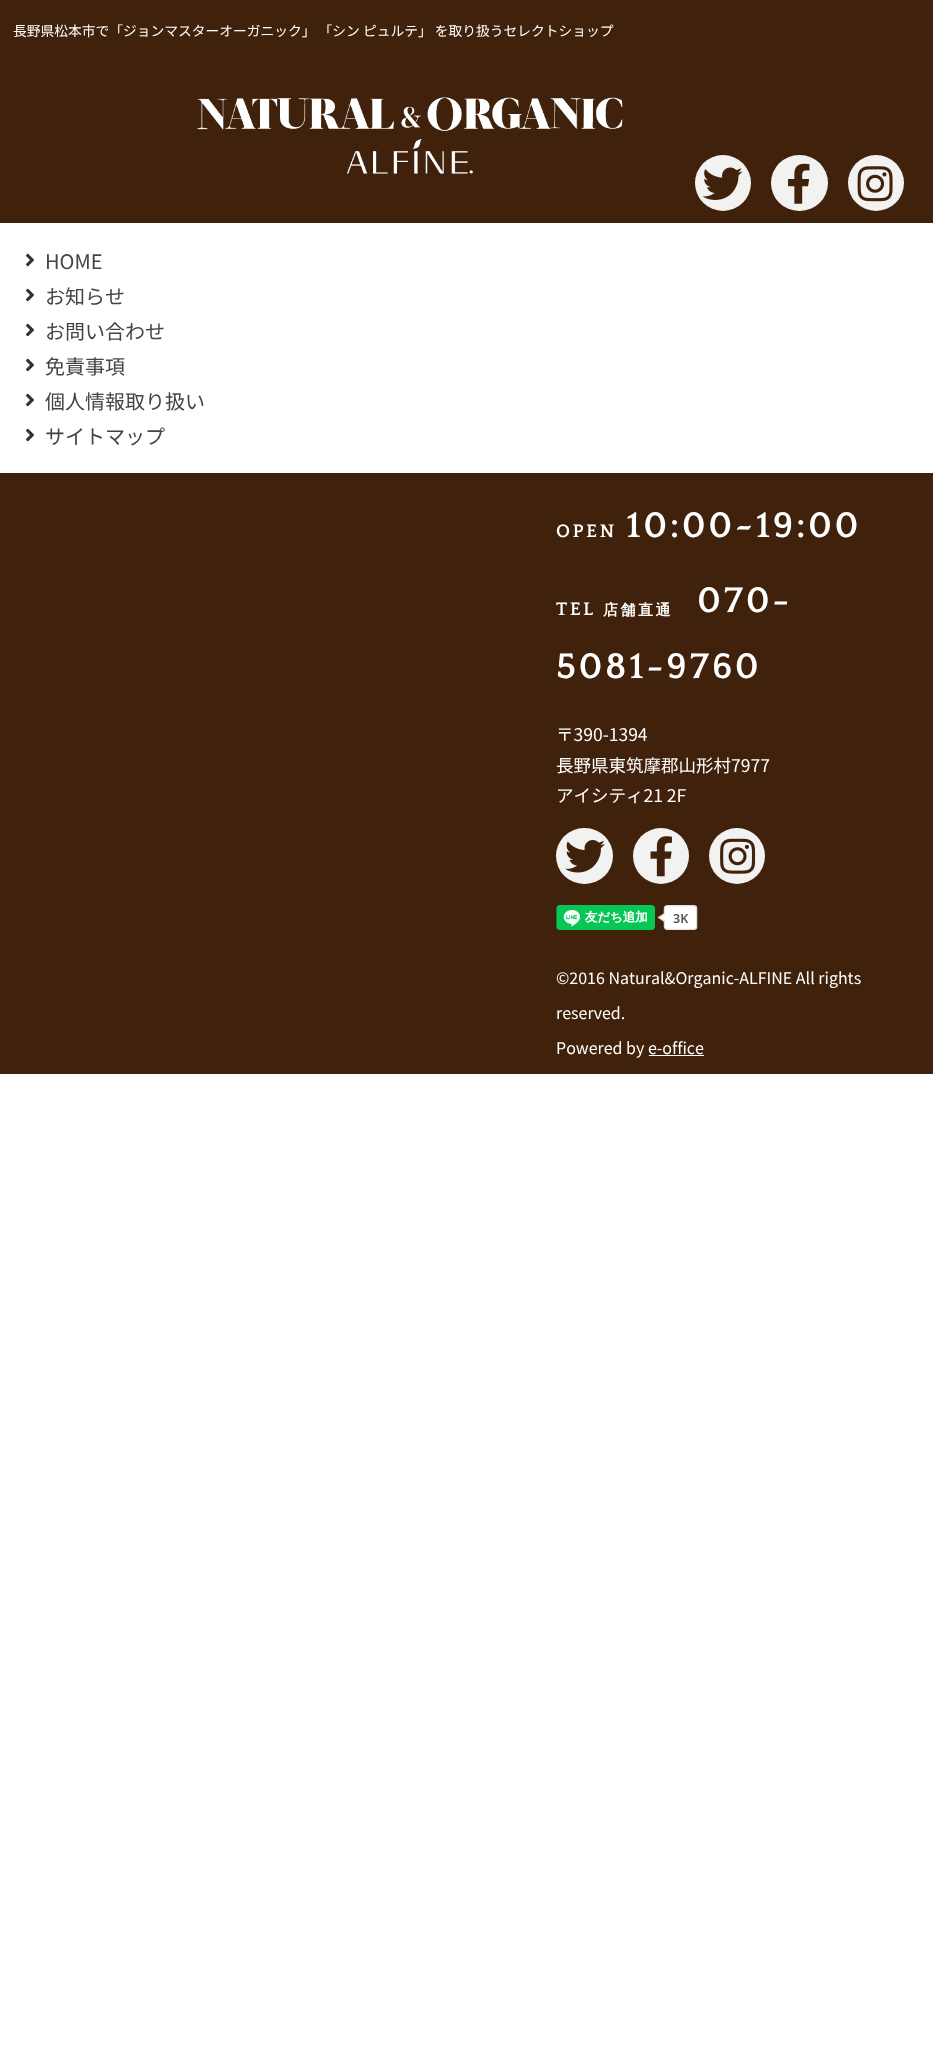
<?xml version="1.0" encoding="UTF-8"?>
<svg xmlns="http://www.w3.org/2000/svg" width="933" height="2061">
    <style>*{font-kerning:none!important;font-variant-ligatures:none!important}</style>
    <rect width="100%" height="100%" fill="#FFFFFF"/>
    <rect x="0" y="0" width="933" height="223" fill="#40210C"/>
    <text x="13" y="36" font-family="Noto Sans JP" font-size="13.75" fill="#FFFFFF">長野県松本市で「ジョンマスターオーガニック」 「シン ピュルテ」 を取り扱うセレクトショップ</text>
    <image x="197" y="97" width="426" height="77" href="img_01.png"/>
    <circle cx="723" cy="183" r="28" fill="#F2F2F1"/>
    <image x="702" y="167" width="41" height="33" href="img_02.png"/>
    <rect x="771" y="155" width="57" height="56" rx="28" fill="#F2F2F1"/>
    <image x="788" y="163" width="22" height="41" href="img_03.png"/>
    <circle cx="876" cy="183" r="28" fill="#F2F2F1"/>
    <image x="857" y="166" width="36" height="36" href="img_04.png"/>
    <image x="26" y="253" width="8" height="14" href="img_05.png"/>
    <text x="45" y="269" font-family="Noto Sans JP" font-size="20" fill="#444444">HOME</text>
    <image x="26" y="288" width="8" height="14" href="img_05.png"/>
    <text x="45" y="304" font-family="Noto Sans JP" font-size="20" fill="#444444">お知らせ</text>
    <image x="26" y="323" width="8" height="14" href="img_05.png"/>
    <text x="45" y="339" font-family="Noto Sans JP" font-size="20" fill="#444444">お問い合わせ</text>
    <image x="26" y="358" width="8" height="14" href="img_05.png"/>
    <text x="45" y="374" font-family="Noto Sans JP" font-size="20" fill="#444444">免責事項</text>
    <image x="26" y="393" width="8" height="14" href="img_05.png"/>
    <text x="45" y="409" font-family="Noto Sans JP" font-size="20" fill="#444444">個人情報取り扱い</text>
    <image x="26" y="428" width="8" height="14" href="img_05.png"/>
    <text x="45" y="444" font-family="Noto Sans JP" font-size="20" fill="#444444">サイトマップ</text>
    <rect x="0" y="473" width="933" height="601" fill="#40210C"/>
    <text x="556" y="537" font-family="Quattrocento" font-size="19" font-weight="700" letter-spacing="2.5" fill="#FFFFFF">OPEN</text>
    <text x="626" y="537" font-family="Quattrocento" font-size="37.5" font-weight="700" letter-spacing="2.5" fill="#FFFFFF">10:00~19:00</text>
    <text x="556" y="615" font-family="Quattrocento" font-size="19" font-weight="700" letter-spacing="2.5" fill="#FFFFFF">TEL</text>
    <text x="603" y="615" font-family="WenQuanYi Zen Hei" font-size="15" font-weight="700" letter-spacing="2.5" fill="#FFFFFF">店舗直通</text>
    <text x="697" y="612" font-family="Quattrocento" font-size="37.5" font-weight="700" letter-spacing="2.5" fill="#FFFFFF">070-</text>
    <text x="556" y="678" font-family="Quattrocento" font-size="37.5" font-weight="700" letter-spacing="2.5" fill="#FFFFFF">5081-9760</text>
    <text font-family="Noto Sans JP" font-size="17.5" fill="#FFFFFF">
        <tspan x="556" y="741">〒390-1394</tspan>
        <tspan x="556" y="772">長野県東筑摩郡山形村7977</tspan>
        <tspan x="556" y="802">アイシティ21 2F</tspan>
    </text>
    <rect x="556" y="828" width="57" height="56" rx="28" fill="#F2F2F1"/>
    <image x="565" y="840" width="40" height="33" href="img_06.png"/>
    <circle cx="661" cy="856" r="28" fill="#F2F2F1"/>
    <image x="650" y="836" width="22" height="41" href="img_07.png"/>
    <circle cx="737" cy="856" r="28" fill="#F2F2F1"/>
    <image x="720" y="838" width="36" height="36" href="img_08.png"/>
    <image x="556" y="905" width="142" height="25" href="img_09.png"/>
    <text x="556" y="984" font-family="Noto Sans JP" font-size="16" fill="#FFFFFF">©2016 Natural&amp;Organic-ALFINE All rights</text>
    <text x="556" y="1019" font-family="Noto Sans JP" font-size="16" fill="#FFFFFF">reserved.</text>
    <text x="556" y="1054" font-family="Noto Sans JP" font-size="16" fill="#FFFFFF">Powered by e-office</text>
    <rect x="649" y="1055" width="55" height="1" fill="#FFFFFF"/>
</svg>
